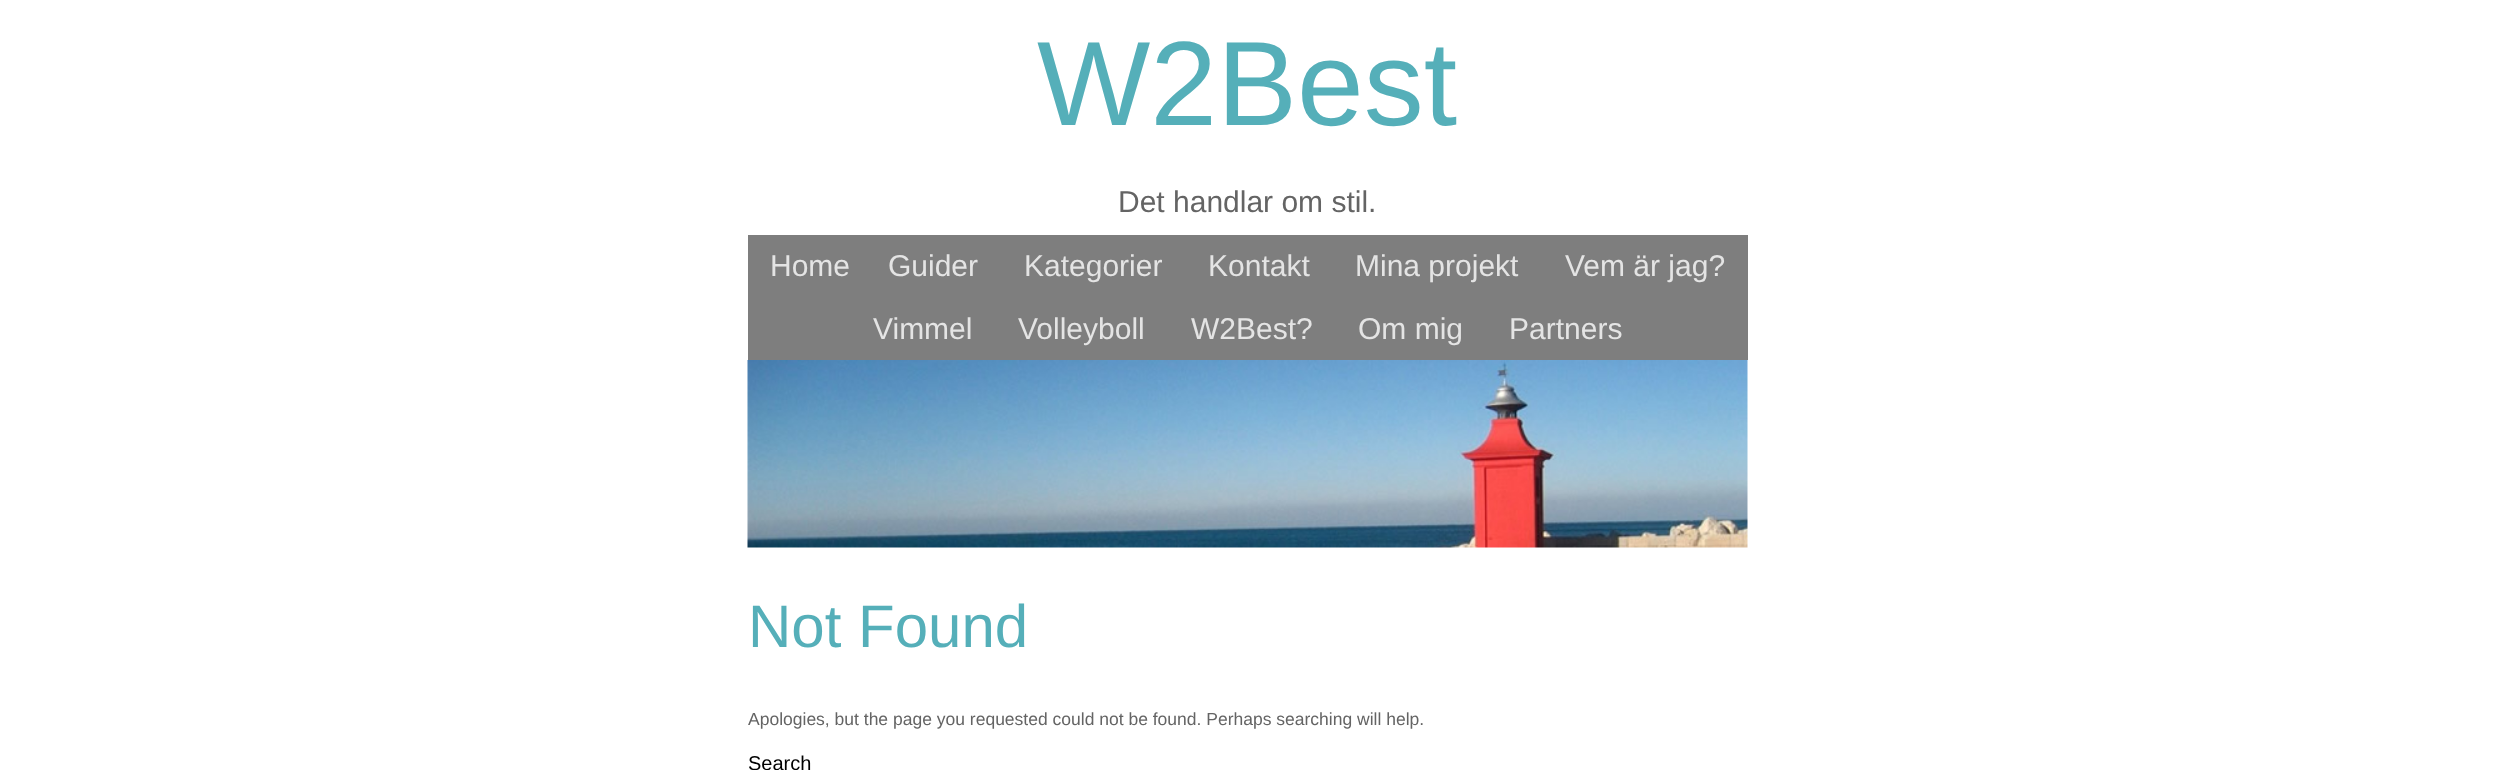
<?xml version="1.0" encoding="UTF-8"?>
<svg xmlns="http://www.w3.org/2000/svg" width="2495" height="770">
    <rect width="100%" height="100%" fill="#FFFFFF"/>
    <text x="1037" y="125" font-family="Liberation Sans" font-size="120" fill="#55AFB9">W2Best</text>
    <text x="1118" y="212" font-family="Liberation Sans" font-size="30" fill="#646464">Det handlar om stil.</text>
    <rect x="748" y="235" width="1000" height="125" fill="#7E7E7E"/>
    <text x="770" y="276" font-family="Liberation Sans" font-size="30" fill="#E4E4E4">Home</text>
    <text x="888" y="276" font-family="Liberation Sans" font-size="30" fill="#E4E4E4">Guider</text>
    <text x="1024" y="276" font-family="Liberation Sans" font-size="30" fill="#E4E4E4">Kategorier</text>
    <text x="1208" y="276" font-family="Liberation Sans" font-size="30" fill="#E4E4E4">Kontakt</text>
    <text x="1355" y="276" font-family="Liberation Sans" font-size="30" fill="#E4E4E4">Mina projekt</text>
    <text x="1565" y="276" font-family="Liberation Sans" font-size="30" fill="#E4E4E4">Vem är jag?</text>
    <text x="873" y="339" font-family="Liberation Sans" font-size="30" fill="#E4E4E4">Vimmel</text>
    <text x="1018" y="339" font-family="Liberation Sans" font-size="30" fill="#E4E4E4">Volleyboll</text>
    <text x="1191" y="339" font-family="Liberation Sans" font-size="30" fill="#E4E4E4">W2Best?</text>
    <text x="1358" y="339" font-family="Liberation Sans" font-size="30" fill="#E4E4E4">Om mig</text>
    <text x="1509" y="339" font-family="Liberation Sans" font-size="30" fill="#E4E4E4">Partners</text>
    <image x="747" y="360" width="1001" height="188" href="img_01.png"/>
    <text x="748" y="647" font-family="Liberation Sans" font-size="60" fill="#55AFB9">Not Found</text>
    <text x="748" y="725" font-family="Liberation Sans" font-size="17.5" fill="#646464">Apologies, but the page you requested could not be found. Perhaps searching will help.</text>
    <text x="748" y="770" font-family="Liberation Sans" font-size="20" fill="#000000">Search</text>
</svg>
